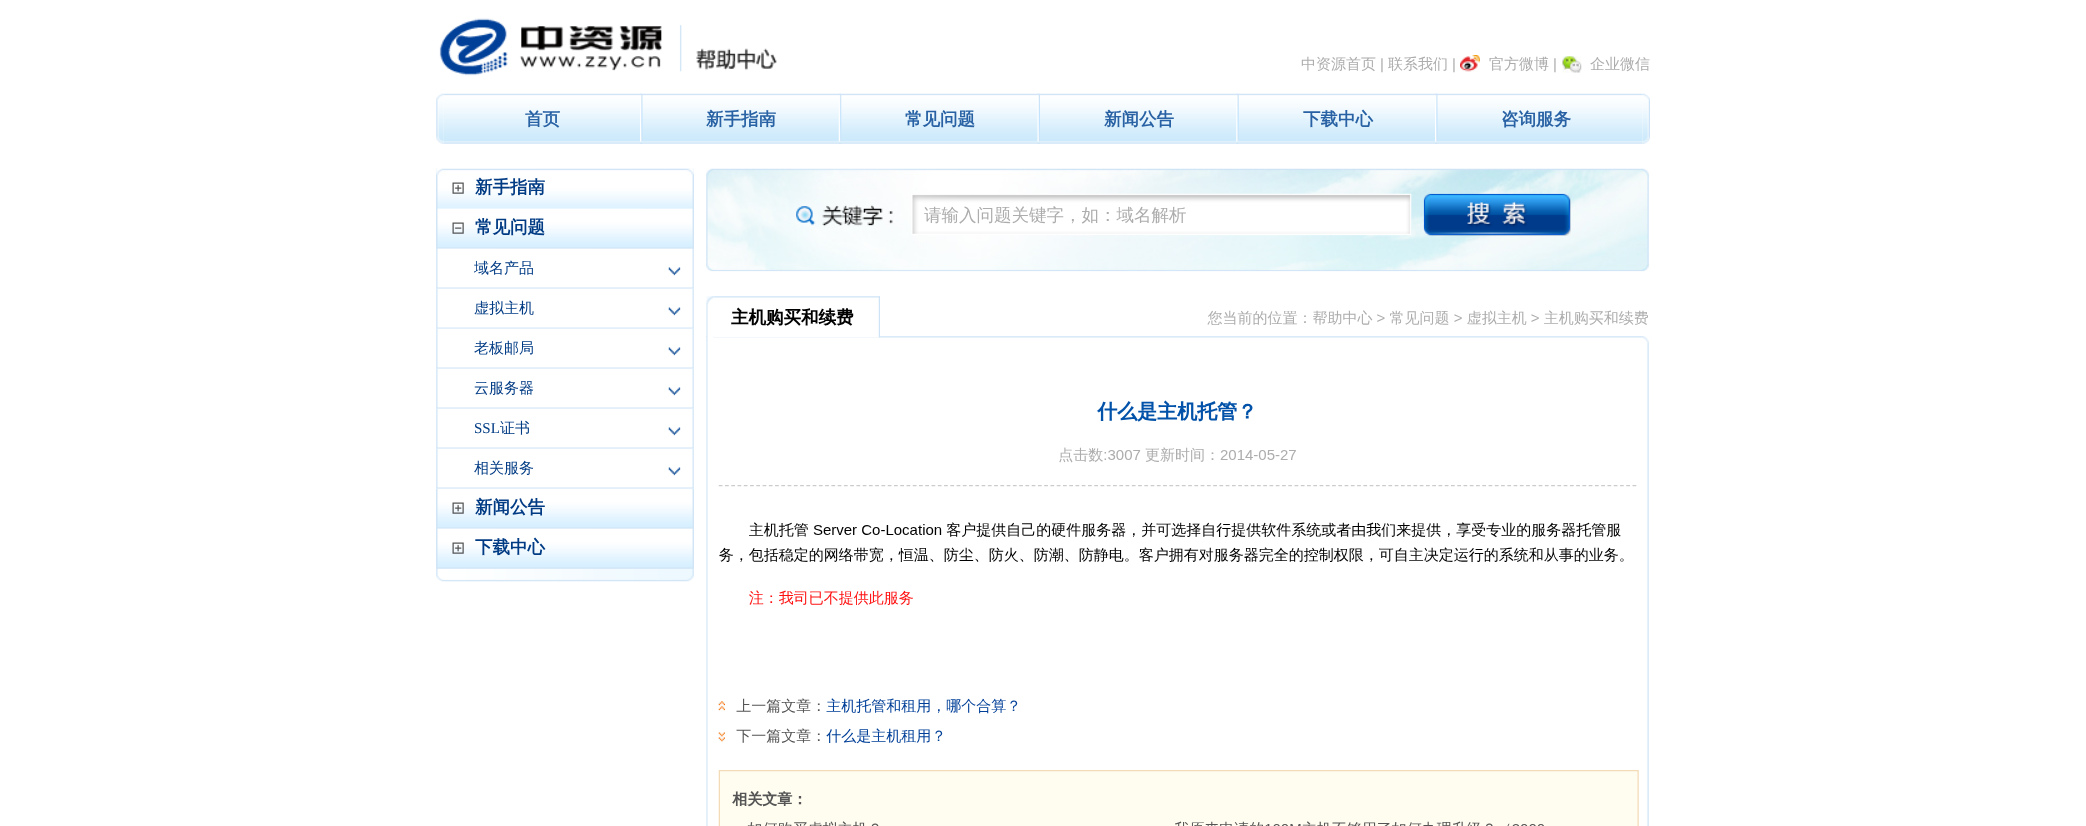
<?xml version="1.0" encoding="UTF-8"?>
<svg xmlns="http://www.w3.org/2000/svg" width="2086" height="826">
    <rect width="100%" height="100%" fill="#FFFFFF"/>
    <image x="439" y="18" width="338" height="58" href="img_01.png"/>
    <text x="1301" y="69" font-family="WenQuanYi Zen Hei" font-size="15" font-weight="500" fill="#ADADAD">中资源首页</text>
    <text x="1380" y="69" font-family="Liberation Sans" font-size="15" fill="#ADADAD">|</text>
    <text x="1388" y="69" font-family="WenQuanYi Zen Hei" font-size="15" font-weight="500" fill="#ADADAD">联系我们</text>
    <text x="1452" y="69" font-family="Liberation Sans" font-size="15" fill="#ADADAD">|</text>
    <image x="1460" y="55" width="20" height="17" href="img_02.png"/>
    <text x="1489" y="69" font-family="WenQuanYi Zen Hei" font-size="15" font-weight="500" fill="#ADADAD">官方微博</text>
    <text x="1553" y="69" font-family="Liberation Sans" font-size="15" fill="#ADADAD">|</text>
    <image x="1562" y="56" width="20" height="17" href="img_03.png"/>
    <text x="1590" y="69" font-family="WenQuanYi Zen Hei" font-size="15" font-weight="500" fill="#ADADAD">企业微信</text>
    <image x="443" y="93" width="1200" height="51" href="img_05.png"/>
    <image x="436" y="93" width="8" height="51" href="img_04.png"/>
    <image x="640" y="93" width="3" height="51" href="img_06.png"/>
    <text x="525" y="125" font-family="WenQuanYi Zen Hei" font-size="17.5" font-weight="700" fill="#2962A4">首页</text>
    <image x="838" y="93" width="4" height="51" href="img_07.png"/>
    <text x="706" y="125" font-family="WenQuanYi Zen Hei" font-size="17.5" font-weight="700" fill="#2962A4">新手指南</text>
    <image x="1037" y="93" width="3" height="51" href="img_08.png"/>
    <text x="905" y="125" font-family="WenQuanYi Zen Hei" font-size="17.5" font-weight="700" fill="#2962A4">常见问题</text>
    <image x="1236" y="93" width="3" height="51" href="img_09.png"/>
    <text x="1104" y="125" font-family="WenQuanYi Zen Hei" font-size="17.5" font-weight="700" fill="#2962A4">新闻公告</text>
    <image x="1435" y="93" width="3" height="51" href="img_06.png"/>
    <text x="1303" y="125" font-family="WenQuanYi Zen Hei" font-size="17.5" font-weight="700" fill="#2962A4">下载中心</text>
    <text x="1501" y="125" font-family="WenQuanYi Zen Hei" font-size="17.5" font-weight="700" fill="#2962A4">咨询服务</text>
    <image x="1642" y="93" width="8" height="51" href="img_10.png"/>
    <image x="436" y="168" width="258" height="407" href="img_11.png"/>
    <image x="436" y="168" width="258" height="41" href="img_12.png"/>
    <image x="452" y="182" width="12" height="12" href="img_13.png"/>
    <text x="475" y="193" font-family="WenQuanYi Zen Hei" font-size="17.5" font-weight="700" fill="#003B84">新手指南</text>
    <image x="436" y="208" width="258" height="41" href="img_14.png"/>
    <image x="452" y="222" width="12" height="12" href="img_15.png"/>
    <text x="475" y="233" font-family="WenQuanYi Zen Hei" font-size="17.5" font-weight="700" fill="#003B84">常见问题</text>
    <rect x="436" y="249" width="258" height="240" fill="#FFFFFF"/>
    <image x="436" y="248" width="258" height="41" href="img_16.png"/>
    <image x="668" y="267" width="13" height="9" href="img_17.png"/>
    <text x="474" y="273" font-family="WenQuanYi Zen Hei" font-size="15" font-weight="500" fill="#003B84">域名产品</text>
    <image x="436" y="288" width="258" height="41" href="img_18.png"/>
    <image x="668" y="307" width="13" height="9" href="img_19.png"/>
    <text x="474" y="313" font-family="WenQuanYi Zen Hei" font-size="15" font-weight="500" fill="#003B84">虚拟主机</text>
    <image x="436" y="328" width="258" height="41" href="img_20.png"/>
    <image x="668" y="347" width="13" height="9" href="img_17.png"/>
    <text x="474" y="353" font-family="WenQuanYi Zen Hei" font-size="15" font-weight="500" fill="#003B84">老板邮局</text>
    <image x="436" y="368" width="258" height="41" href="img_20.png"/>
    <image x="668" y="387" width="13" height="9" href="img_17.png"/>
    <text x="474" y="393" font-family="WenQuanYi Zen Hei" font-size="15" font-weight="500" fill="#003B84">云服务器</text>
    <image x="436" y="408" width="258" height="41" href="img_20.png"/>
    <image x="668" y="427" width="13" height="9" href="img_17.png"/>
    <text x="474" y="433" font-family="Liberation Serif" font-size="15" fill="#003B84">SSL</text>
    <text x="500" y="433" font-family="WenQuanYi Zen Hei" font-size="15" font-weight="500" fill="#003B84">证书</text>
    <image x="436" y="448" width="258" height="41" href="img_20.png"/>
    <image x="668" y="467" width="13" height="9" href="img_17.png"/>
    <text x="474" y="473" font-family="WenQuanYi Zen Hei" font-size="15" font-weight="500" fill="#003B84">相关服务</text>
    <image x="436" y="488" width="258" height="41" href="img_21.png"/>
    <image x="452" y="502" width="12" height="12" href="img_22.png"/>
    <text x="475" y="513" font-family="WenQuanYi Zen Hei" font-size="17.5" font-weight="700" fill="#003B84">新闻公告</text>
    <image x="436" y="528" width="258" height="41" href="img_23.png"/>
    <image x="452" y="542" width="12" height="12" href="img_22.png"/>
    <text x="475" y="553" font-family="WenQuanYi Zen Hei" font-size="17.5" font-weight="700" fill="#003B84">下载中心</text>
    <image x="436" y="575" width="258" height="7" href="img_24.png"/>
    <image x="706" y="168" width="943" height="104" href="img_25.png"/>
    <image x="911" y="193" width="501" height="43" href="img_26.png"/>
    <text x="924" y="221" font-family="WenQuanYi Zen Hei" font-size="17.5" font-weight="500" fill="#ADADAD">请输入问题关键字，如：域名解析</text>
    <image x="1423" y="193" width="148" height="43" href="img_27.png"/>
    <image x="706" y="271" width="943" height="555" href="img_28.png"/>
</svg>
